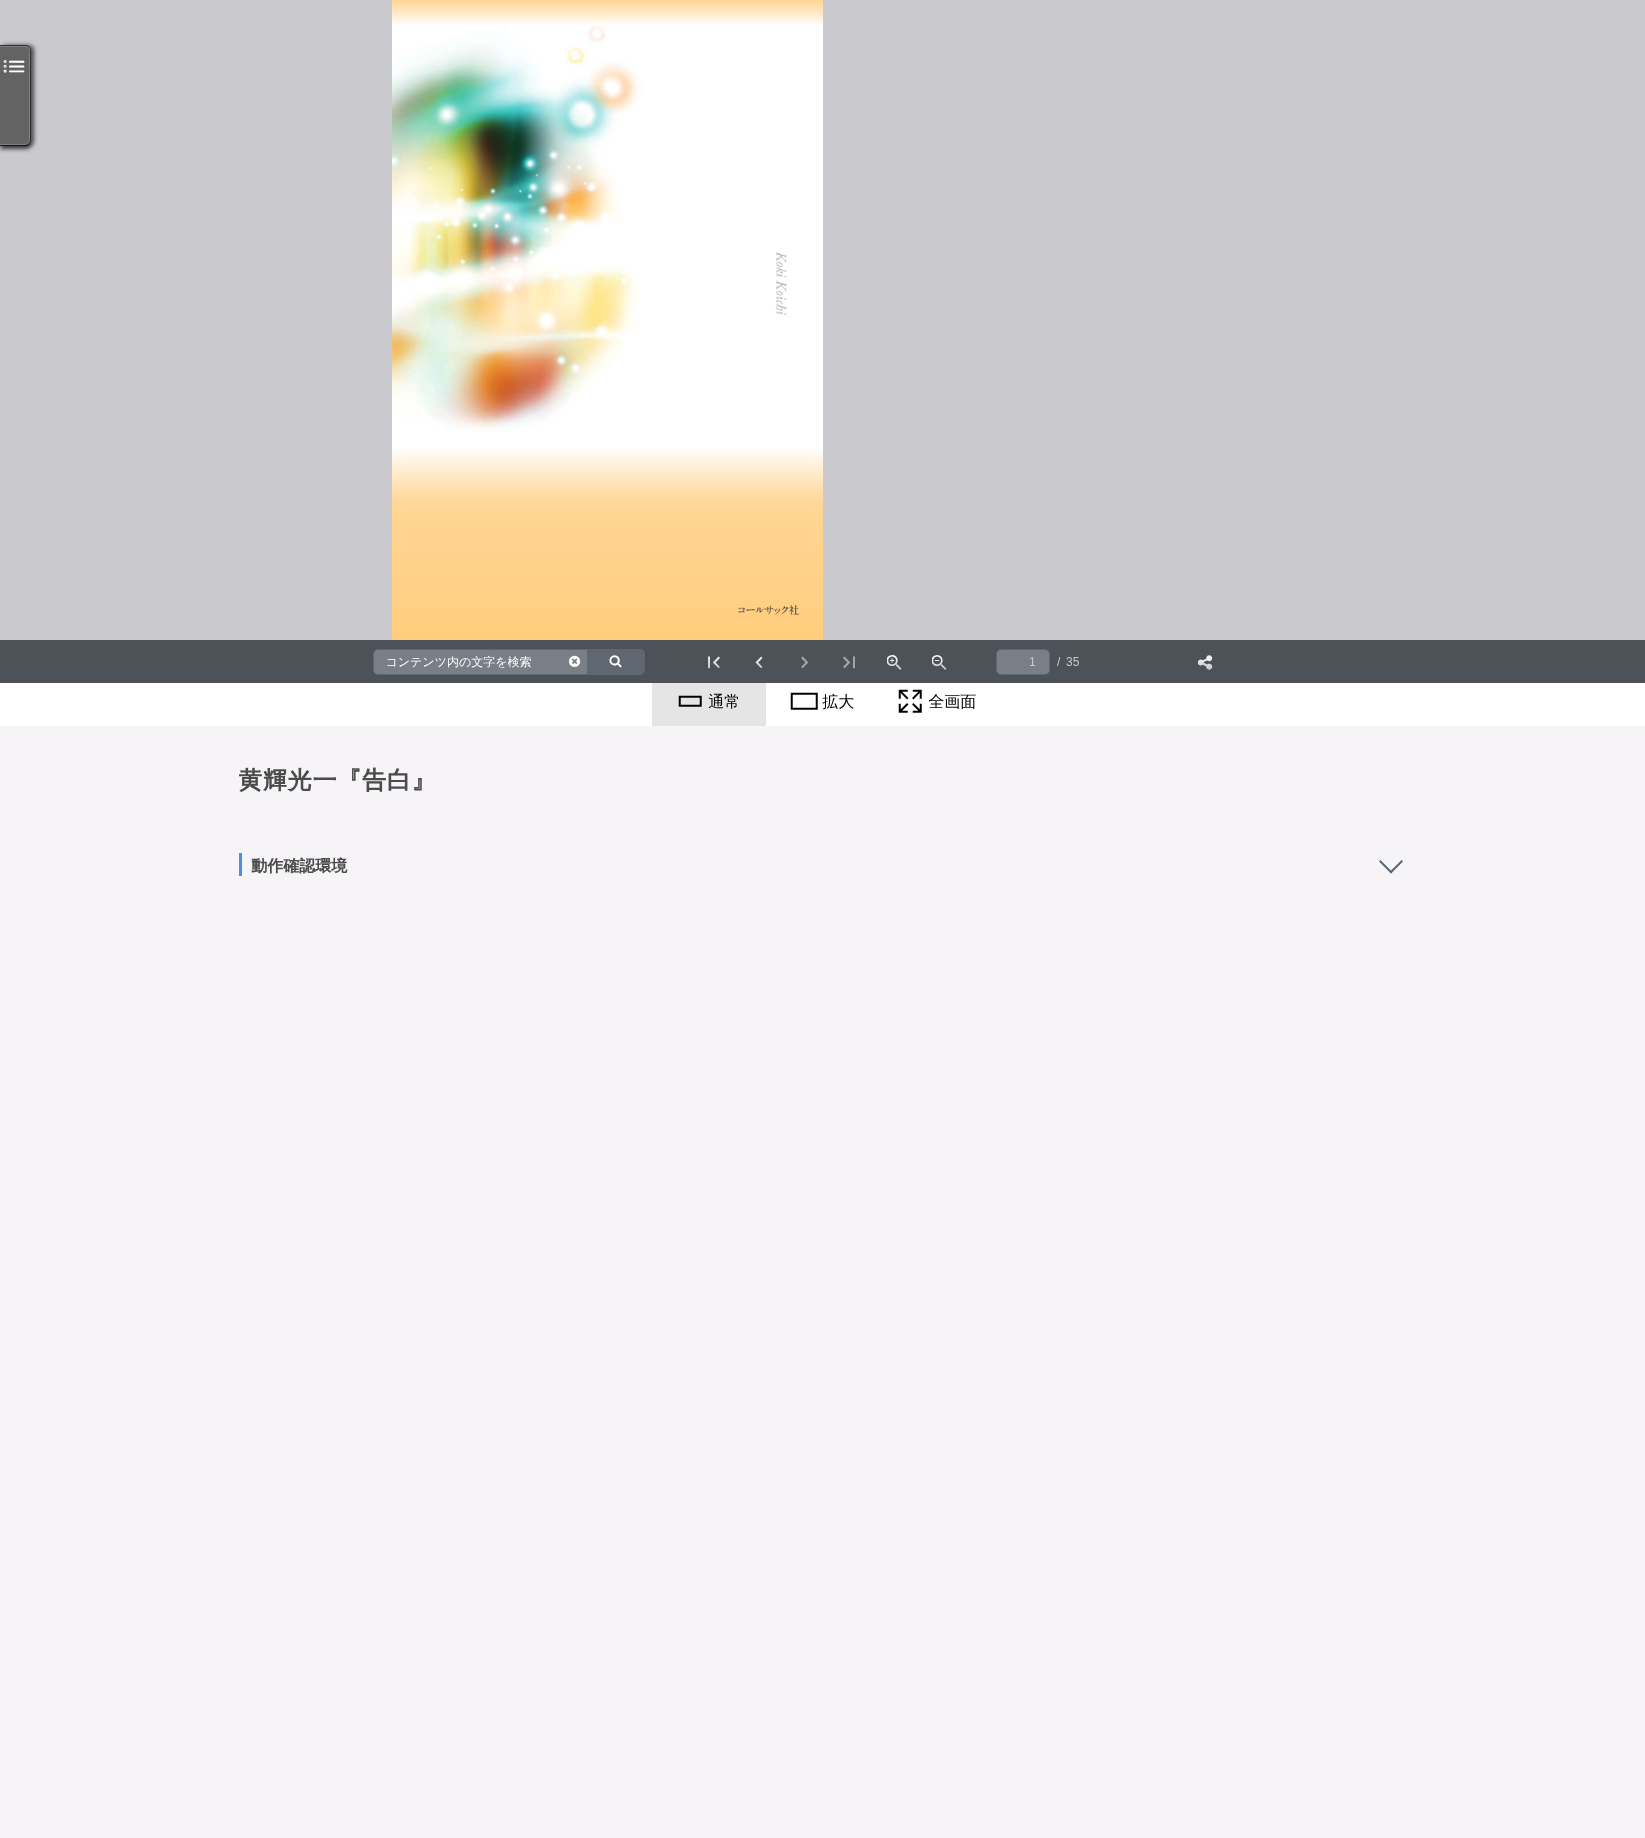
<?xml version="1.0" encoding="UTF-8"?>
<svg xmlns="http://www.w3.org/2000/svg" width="1645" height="1838">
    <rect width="100%" height="100%" fill="#FFFFFF"/>
    <image x="0" y="0" width="1645" height="1838" href="img_01.png"/>
</svg>
